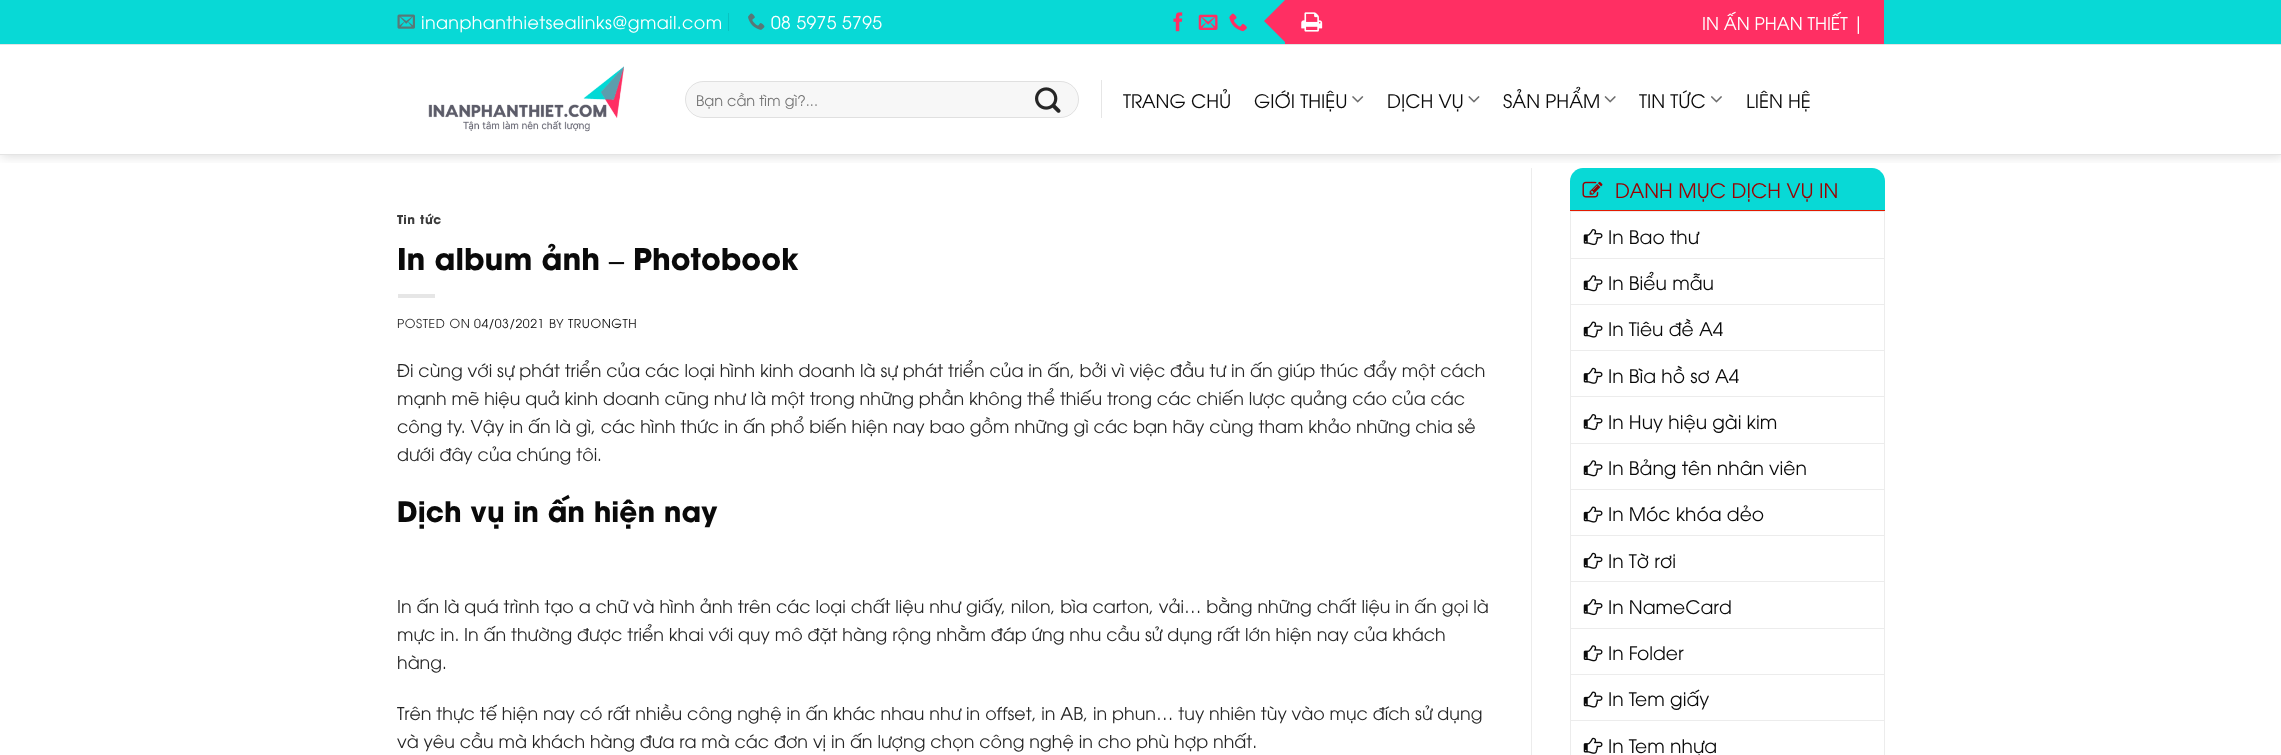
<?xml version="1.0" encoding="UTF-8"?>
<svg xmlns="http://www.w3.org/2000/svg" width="2281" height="755">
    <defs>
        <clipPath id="clip1"><rect x="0" y="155" width="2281" height="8"/></clipPath>
        <filter id="blur1" x="-50%" y="-200%" width="200%" height="500%"><feGaussianBlur stdDeviation="6"/></filter>
    </defs>
    <rect width="100%" height="100%" fill="#FFFFFF"/>
    <rect x="1531" y="168" width="1" height="587" fill="#ECECEC"/>
    <path d="M 1583 168 H 1872 C 1879 168 1885 174 1885 181 V 211 H 1570 V 181 C 1570 174 1576 168 1583 168 Z" fill="#08D9D6"/>
    <g clip-path="url(#clip1)">
        <rect x="1" y="1" width="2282" height="155" fill="#000000" fill-opacity="0.15" filter="url(#blur1)"/>
    </g>
    <rect x="0" y="0" width="2281" height="44" fill="#08D9D6"/>
    <rect x="0" y="44" width="2281" height="1" fill="#E4E4E4"/>
    <image x="397" y="14" width="18" height="15" href="img_01.png"/>
    <text x="421" y="29" font-family="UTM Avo" font-size="17.5" letter-spacing="0.4" fill="#FFFFFF">inanphanthietsealinks@gmail.com</text>
    <rect x="728" y="13" width="1" height="18" fill="#07C3C1"/>
    <image x="748" y="13" width="17" height="17" href="img_02.png"/>
    <text x="771" y="29" font-family="UTM Avo" font-size="17.5" letter-spacing="0.4" fill="#FFFFFF">08 5975 5795</text>
    <image x="1173" y="12" width="10" height="20" href="img_03.png"/>
    <image x="1198" y="14" width="20" height="16" href="img_04.png"/>
    <image x="1229" y="13" width="18" height="19" href="img_05.png"/>
    <rect x="1285" y="0" width="599" height="44" fill="#FF2F63"/>
    <path d="M 1285 0 V 42 L 1264 21 Z" fill="#FF2F63"/>
    <image x="1301" y="12" width="22" height="20" href="img_06.png"/>
    <text x="1702" y="30" font-family="UTM Avo" font-size="17.5" fill="#FFFFFF">IN ẤN PHAN THIẾT |</text>
    <rect x="0" y="154" width="2281" height="1" fill="#E4E4E4"/>
    <image x="428" y="66" width="196" height="66" href="img_07.png"/>
    <rect x="685" y="81" width="394" height="37" rx="18.5" fill="#F7F7F7"/>
    <rect x="685.5" y="81.5" width="393" height="36" rx="18" fill="none" stroke="#000000" stroke-opacity="0.09"/>
    <text x="696" y="106" font-family="UTM Avo" font-size="14.5" fill="#757575">Bạn cần tìm gì?...</text>
    <image x="1035" y="87" width="26" height="26" href="img_08.png"/>
    <rect x="1101" y="80" width="1" height="38" fill="#E6E6E6"/>
    <text x="1123" y="108" font-family="UTM Avo" font-size="18.75" fill="#0A0A0A">TRANG CHỦ</text>
    <text x="1254" y="108" font-family="UTM Avo" font-size="18.75" fill="#0A0A0A">GIỚI THIỆU</text>
    <image x="1352" y="96" width="12" height="7" href="img_09.png"/>
    <text x="1387" y="108" font-family="UTM Avo" font-size="18.75" fill="#0A0A0A">DỊCH VỤ</text>
    <image x="1468" y="96" width="12" height="7" href="img_10.png"/>
    <text x="1503" y="108" font-family="UTM Avo" font-size="18.75" fill="#0A0A0A">SẢN PHẨM</text>
    <image x="1604" y="96" width="12" height="7" href="img_11.png"/>
    <text x="1639" y="108" font-family="UTM Avo" font-size="18.75" fill="#0A0A0A">TIN TỨC</text>
    <image x="1711" y="96" width="11" height="7" href="img_12.png"/>
    <text x="1746" y="108" font-family="UTM Avo" font-size="18.75" fill="#0A0A0A">LIÊN HỆ</text>
    <text x="397" y="224" font-family="UTM Avo" font-size="12.25" font-weight="700" letter-spacing="0.6" fill="#3B3B3B">Tin tức</text>
    <text x="397" y="270" font-family="UTM Avo" font-size="29.75" font-weight="700" fill="#0A0A0A">In album ảnh</text>
    <text x="609" y="270" font-family="Liberation Serif" font-size="29.75" font-weight="700" fill="#0A0A0A">–</text>
    <text x="633" y="270" font-family="UTM Avo" font-size="29.75" font-weight="700" fill="#0A0A0A">Photobook</text>
    <rect x="398" y="294" width="37" height="4" fill="#E6E6E6"/>
    <text x="397" y="328" font-family="UTM Avo" font-size="12.25" letter-spacing="0.6" fill="#262626">POSTED ON</text>
    <text x="474" y="328" font-family="UTM Avo" font-size="12.25" letter-spacing="0.6" fill="#0A0A0A">04/03/2021</text>
    <text x="549" y="328" font-family="UTM Avo" font-size="12.25" letter-spacing="0.6" fill="#262626">BY</text>
    <text x="568" y="328" font-family="UTM Avo" font-size="12.25" letter-spacing="0.6" fill="#0A0A0A">TRUONGTH</text>
    <text font-family="UTM Avo" font-size="17.5" fill="#262626">
        <tspan x="397" y="377">Đi cùng với sự phát triển của các loại hình kinh doanh là sự phát triển của in ấn, bởi vì việc đầu tư in ấn giúp thúc đẩy một cách</tspan>
        <tspan x="397" y="405">mạnh mẽ hiệu quả kinh doanh cũng như là một trong những phần không thể thiếu trong các chiến lược quảng cáo của các</tspan>
        <tspan x="397" y="433">công ty. Vậy in ấn là gì, các hình thức in ấn phổ biến hiện nay bao gồm những gì các bạn hãy cùng tham khảo những chia sẻ</tspan>
        <tspan x="397" y="461">dưới đây của chúng tôi.</tspan>
    </text>
    <text x="397" y="522" font-family="UTM Avo" font-size="28" font-weight="700" fill="#0A0A0A">Dịch vụ in ấn hiện nay</text>
    <text font-family="UTM Avo" font-size="17.5" fill="#262626">
        <tspan x="397" y="613">In ấn là quá trình tạo a chữ và hình ảnh trên các loại chất liệu như giấy, nilon, bìa carton, vải… bằng những chất liệu in ấn gọi là</tspan>
        <tspan x="397" y="641">mực in. In ấn thường được triển khai với quy mô đặt hàng rộng nhằm đáp ứng nhu cầu sử dụng rất lớn hiện nay của khách</tspan>
        <tspan x="397" y="669">hàng.</tspan>
    </text>
    <text font-family="UTM Avo" font-size="17.5" fill="#262626">
        <tspan x="397" y="720">Trên thực tế hiện nay có rất nhiều công nghệ in ấn khác nhau như in offset, in AB, in phun… tuy nhiên tùy vào mục đích sử dụng</tspan>
        <tspan x="397" y="748">và yêu cầu mà khách hàng đưa ra mà các đơn vị in ấn lượng chọn công nghệ in cho phù hợp nhất.</tspan>
    </text>
    <rect x="1570" y="210" width="315" height="1" fill="#E31B00"/>
    <image x="1582" y="181" width="21" height="17" href="img_13.png"/>
    <text x="1615" y="198" font-family="UTM Avo" font-size="20" fill="#9C0000">DANH MỤC DỊCH VỤ IN</text>
    <rect x="1570.5" y="211.5" width="314" height="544" fill="none" stroke="#ECECEC"/>
    <image x="1583" y="229" width="20" height="17" href="img_14.png"/>
    <text x="1608" y="244" font-family="UTM Avo" font-size="18.75" fill="#0A0A0A">In Bao thư</text>
    <rect x="1571" y="258" width="313" height="1" fill="#ECECEC"/>
    <image x="1583" y="275" width="20" height="17" href="img_15.png"/>
    <text x="1608" y="290" font-family="UTM Avo" font-size="18.75" fill="#0A0A0A">In Biểu mẫu</text>
    <rect x="1571" y="304" width="313" height="1" fill="#ECECEC"/>
    <image x="1583" y="321" width="20" height="17" href="img_16.png"/>
    <text x="1608" y="336" font-family="UTM Avo" font-size="18.75" fill="#0A0A0A">In Tiêu đề A4</text>
    <rect x="1571" y="350" width="313" height="1" fill="#ECECEC"/>
    <image x="1583" y="367" width="20" height="17" href="img_17.png"/>
    <text x="1608" y="383" font-family="UTM Avo" font-size="18.75" fill="#0A0A0A">In Bìa hồ sơ A4</text>
    <rect x="1571" y="396" width="313" height="1" fill="#ECECEC"/>
    <image x="1583" y="414" width="20" height="17" href="img_14.png"/>
    <text x="1608" y="429" font-family="UTM Avo" font-size="18.75" fill="#0A0A0A">In Huy hiệu gài kim</text>
    <rect x="1571" y="443" width="313" height="1" fill="#ECECEC"/>
    <image x="1583" y="460" width="20" height="17" href="img_15.png"/>
    <text x="1608" y="475" font-family="UTM Avo" font-size="18.75" fill="#0A0A0A">In Bảng tên nhân viên</text>
    <rect x="1571" y="489" width="313" height="1" fill="#ECECEC"/>
    <image x="1583" y="506" width="20" height="17" href="img_16.png"/>
    <text x="1608" y="521" font-family="UTM Avo" font-size="18.75" fill="#0A0A0A">In Móc khóa dẻo</text>
    <rect x="1571" y="535" width="313" height="1" fill="#ECECEC"/>
    <image x="1583" y="552" width="20" height="17" href="img_17.png"/>
    <text x="1608" y="568" font-family="UTM Avo" font-size="18.75" fill="#0A0A0A">In Tờ rơi</text>
    <rect x="1571" y="581" width="313" height="1" fill="#ECECEC"/>
    <image x="1583" y="599" width="20" height="17" href="img_14.png"/>
    <text x="1608" y="614" font-family="UTM Avo" font-size="18.75" fill="#0A0A0A">In NameCard</text>
    <rect x="1571" y="628" width="313" height="1" fill="#ECECEC"/>
    <image x="1583" y="645" width="20" height="17" href="img_15.png"/>
    <text x="1608" y="660" font-family="UTM Avo" font-size="18.75" fill="#0A0A0A">In Folder</text>
    <rect x="1571" y="674" width="313" height="1" fill="#ECECEC"/>
    <image x="1583" y="691" width="20" height="17" href="img_16.png"/>
    <text x="1608" y="706" font-family="UTM Avo" font-size="18.75" fill="#0A0A0A">In Tem giấy</text>
    <rect x="1571" y="720" width="313" height="1" fill="#ECECEC"/>
    <image x="1583" y="737" width="20" height="17" href="img_17.png"/>
    <text x="1608" y="753" font-family="UTM Avo" font-size="18.75" fill="#0A0A0A">In Tem nhựa</text>
</svg>
